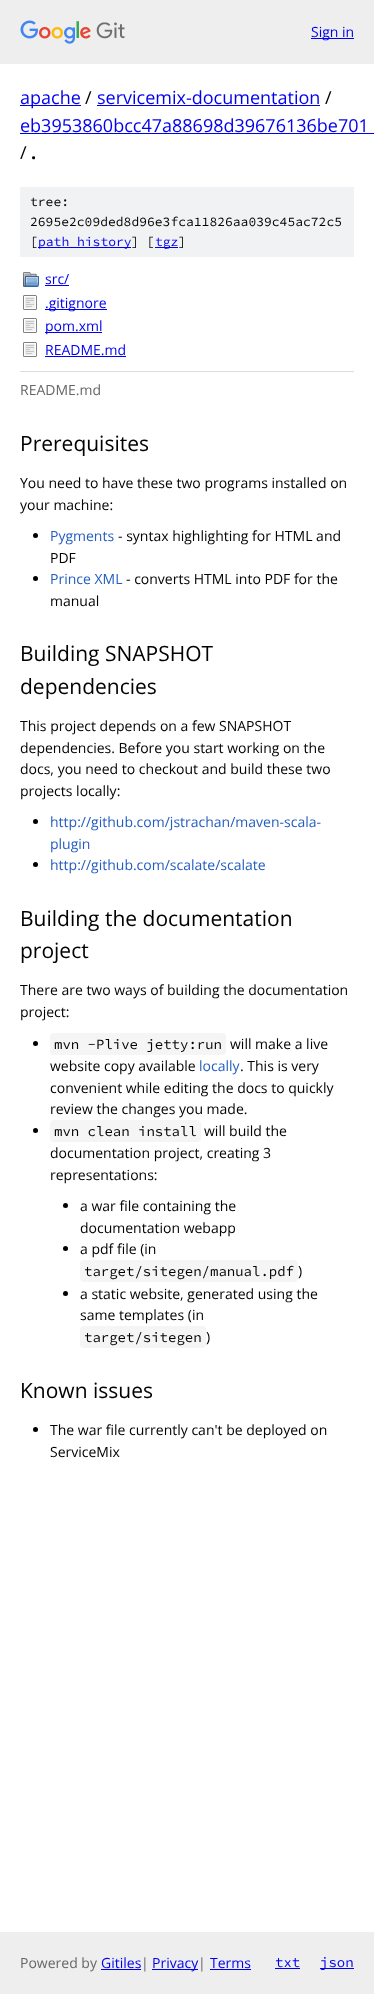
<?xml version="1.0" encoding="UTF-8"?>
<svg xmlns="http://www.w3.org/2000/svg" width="374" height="1994">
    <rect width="100%" height="100%" fill="#FFFFFF"/>
    <rect x="0" y="0" width="374" height="64" fill="#EEEEEE"/>
    <image x="20" y="20" width="105" height="24" href="img_01.png"/>
    <rect x="311" y="38" width="43" height="1" fill="#0000EE"/>
    <text x="311" y="37" font-family="Open Sans" font-size="14" fill="#0000EE">Sign in</text>
    <rect x="20" y="105" width="61" height="1" fill="#0000EE"/>
    <text x="20" y="104" font-family="Open Sans" font-size="18" fill="#0000EE">apache</text>
    <text x="85" y="104" font-family="Open Sans" font-size="18" fill="#000000">/</text>
    <text x="97" y="104" font-family="Open Sans" font-size="18" fill="#0000EE">servicemix-documentation</text>
    <rect x="97" y="105" width="223" height="1" fill="#0000EE"/>
    <text x="325" y="104" font-family="Open Sans" font-size="18" fill="#000000">/</text>
    <text x="20" y="132" font-family="Open Sans" font-size="18" fill="#0000EE">eb3953860bcc47a88698d39676136be701</text>
    <rect x="20" y="133" width="354" height="1" fill="#0000EE"/>
    <text x="20" y="159" font-family="Open Sans" font-size="18" fill="#000000">/</text>
    <text x="31" y="159" font-family="Open Sans" font-size="18" font-weight="700" fill="#000000">.</text>
    <rect x="20" y="187" width="334" height="70" fill="#F1F2F3"/>
    <text font-family="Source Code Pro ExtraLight" font-size="13" font-weight="200" fill="#000000">
        <tspan x="30" y="206">tree:</tspan>
        <tspan x="30" y="226">2695e2c09ded8d96e3fca11826aa039c45ac72c5</tspan>
        <tspan x="30" y="246">[</tspan>
    </text>
    <rect x="38" y="247" width="93" height="1" fill="#0000EE"/>
    <text x="38" y="246" font-family="Source Code Pro ExtraLight" font-size="13" font-weight="200" fill="#0000EE">path history</text>
    <text x="131" y="246" font-family="Source Code Pro ExtraLight" font-size="13" font-weight="200" fill="#000000">] [</text>
    <rect x="155" y="247" width="23" height="1" fill="#0000EE"/>
    <text x="155" y="246" font-family="Source Code Pro ExtraLight" font-size="13" font-weight="200" fill="#0000EE">tgz</text>
    <text x="178" y="246" font-family="Source Code Pro ExtraLight" font-size="13" font-weight="200" fill="#000000">]</text>
    <image x="23" y="272" width="16" height="15" href="img_02.png"/>
    <text x="45" y="284" font-family="Open Sans" font-size="14" fill="#0000EE">src/</text>
    <rect x="45" y="285" width="24" height="1" fill="#0000EE"/>
    <image x="23" y="295" width="14" height="15" href="img_03.png"/>
    <rect x="45" y="309" width="62" height="1" fill="#0000EE"/>
    <text x="45" y="308" font-family="Open Sans" font-size="14" fill="#0000EE">.gitignore</text>
    <image x="23" y="318" width="14" height="15" href="img_03.png"/>
    <rect x="45" y="332" width="57" height="1" fill="#0000EE"/>
    <text x="45" y="331" font-family="Open Sans" font-size="14" fill="#0000EE">pom.xml</text>
    <image x="23" y="342" width="14" height="15" href="img_03.png"/>
    <text x="45" y="355" font-family="Open Sans" font-size="14" fill="#0000EE">README.md</text>
    <rect x="45" y="356" width="81" height="1" fill="#0000EE"/>
    <rect x="20" y="371" width="334" height="1" fill="#DDDDDD"/>
    <text x="20" y="395" font-family="Open Sans" font-size="14" fill="#666666">README.md</text>
    <text x="20" y="451" font-family="Open Sans" font-size="21" fill="#000000">Prerequisites</text>
    <text font-family="Open Sans" font-size="14" fill="#000000">
        <tspan x="20" y="488">You need to have these two programs installed on</tspan>
        <tspan x="20" y="510">your machine:</tspan>
    </text>
    <circle cx="35.5" cy="535.5" r="2.5" fill="#000000"/>
    <text x="50" y="541" font-family="Open Sans" font-size="14" fill="#245DC1">Pygments</text>
    <text x="118" y="541" font-family="Open Sans" font-size="14" fill="#000000">- syntax highlighting for HTML and</text>
    <text x="50" y="563" font-family="Open Sans" font-size="14" fill="#000000">PDF</text>
    <circle cx="35.5" cy="578.5" r="2.5" fill="#000000"/>
    <text x="50" y="584" font-family="Open Sans" font-size="14" fill="#245DC1">Prince XML</text>
    <text x="126" y="584" font-family="Open Sans" font-size="14" fill="#000000">- converts HTML into PDF for the</text>
    <text x="50" y="606" font-family="Open Sans" font-size="14" fill="#000000">manual</text>
    <text font-family="Open Sans" font-size="21" fill="#000000">
        <tspan x="20" y="661">Building SNAPSHOT</tspan>
        <tspan x="20" y="694">dependencies</tspan>
    </text>
    <text font-family="Open Sans" font-size="14" fill="#000000">
        <tspan x="20" y="731">This project depends on a few SNAPSHOT</tspan>
        <tspan x="20" y="753">dependencies. Before you start working on the</tspan>
        <tspan x="20" y="774">docs, you need to checkout and build these two</tspan>
        <tspan x="20" y="796">projects locally:</tspan>
    </text>
    <circle cx="35.5" cy="821.5" r="2.5" fill="#000000"/>
    <text font-family="Open Sans" font-size="14" fill="#245DC1">
        <tspan x="50" y="827">http://github.com/jstrachan/maven-scala-</tspan>
        <tspan x="50" y="849">plugin</tspan>
    </text>
    <circle cx="35.5" cy="864.5" r="2.5" fill="#000000"/>
    <text x="50" y="870" font-family="Open Sans" font-size="14" fill="#245DC1">http://github.com/scalate/scalate</text>
    <text font-family="Open Sans" font-size="21" fill="#000000">
        <tspan x="20" y="926">Building the documentation</tspan>
        <tspan x="20" y="958">project</tspan>
    </text>
    <text font-family="Open Sans" font-size="14" fill="#000000">
        <tspan x="20" y="995">There are two ways of building the documentation</tspan>
        <tspan x="20" y="1017">project:</tspan>
    </text>
    <circle cx="35.5" cy="1043.5" r="2.5" fill="#000000"/>
    <rect x="50" y="1033" width="176" height="22" rx="4" fill="#F5F5F5"/>
    <text x="54" y="1049" font-family="Source Code Pro ExtraLight" font-size="14" font-weight="200" fill="#000000">mvn -Plive jetty:run</text>
    <text x="230" y="1049" font-family="Open Sans" font-size="14" fill="#000000">will make a live</text>
    <text x="50" y="1071" font-family="Open Sans" font-size="14" fill="#000000">website copy available</text>
    <text x="199" y="1071" font-family="Open Sans" font-size="14" fill="#245DC1">locally</text>
    <text x="240" y="1071" font-family="Open Sans" font-size="14" fill="#000000">. This is very</text>
    <text font-family="Open Sans" font-size="14" fill="#000000">
        <tspan x="50" y="1093">convenient while editing the docs to quickly</tspan>
        <tspan x="50" y="1114">review the changes you made.</tspan>
    </text>
    <circle cx="35.5" cy="1130.5" r="2.5" fill="#000000"/>
    <rect x="50" y="1120" width="151" height="22" rx="4" fill="#F5F5F5"/>
    <text x="54" y="1136" font-family="Source Code Pro ExtraLight" font-size="14" font-weight="200" fill="#000000">mvn clean install</text>
    <text x="204" y="1136" font-family="Open Sans" font-size="14" fill="#000000">will build the</text>
    <text font-family="Open Sans" font-size="14" fill="#000000">
        <tspan x="50" y="1158">documentation project, creating 3</tspan>
        <tspan x="50" y="1180">representations:</tspan>
    </text>
    <circle cx="65.5" cy="1205.5" r="2.5" fill="#000000"/>
    <text font-family="Open Sans" font-size="14" fill="#000000">
        <tspan x="80" y="1211">a war file containing the</tspan>
        <tspan x="80" y="1233">documentation webapp</tspan>
    </text>
    <circle cx="65.5" cy="1248.5" r="2.5" fill="#000000"/>
    <text x="80" y="1254" font-family="Open Sans" font-size="14" fill="#000000">a pdf file (in</text>
    <rect x="80" y="1260" width="218" height="22" rx="4" fill="#F5F5F5"/>
    <text x="84" y="1276" font-family="Source Code Pro ExtraLight" font-size="14" font-weight="200" fill="#000000">target/sitegen/manual.pdf</text>
    <text x="298" y="1276" font-family="Open Sans" font-size="14" fill="#000000">)</text>
    <circle cx="65.5" cy="1293.5" r="2.5" fill="#000000"/>
    <text font-family="Open Sans" font-size="14" fill="#000000">
        <tspan x="80" y="1299">a static website, generated using the</tspan>
        <tspan x="80" y="1320">same templates (in</tspan>
    </text>
    <rect x="80" y="1326" width="126" height="22" rx="4" fill="#F5F5F5"/>
    <text x="84" y="1342" font-family="Source Code Pro ExtraLight" font-size="14" font-weight="200" fill="#000000">target/sitegen</text>
    <text x="206" y="1342" font-family="Open Sans" font-size="14" fill="#000000">)</text>
    <text x="20" y="1398" font-family="Open Sans" font-size="21" fill="#000000">Known issues</text>
    <circle cx="35.5" cy="1429.5" r="2.5" fill="#000000"/>
    <text font-family="Open Sans" font-size="14" fill="#000000">
        <tspan x="50" y="1435">The war file currently can't be deployed on</tspan>
        <tspan x="50" y="1457">ServiceMix</tspan>
    </text>
    <rect x="0" y="1932" width="374" height="62" fill="#EEEEEE"/>
    <text x="20" y="1968" font-family="Open Sans" font-size="14" fill="#666666">Powered by</text>
    <text x="101" y="1968" font-family="Open Sans" font-size="14" fill="#0000EE">Gitiles</text>
    <rect x="101" y="1969" width="40" height="1" fill="#0000EE"/>
    <text x="141" y="1968" font-family="Open Sans" font-size="14" fill="#666666">|</text>
    <rect x="152" y="1969" width="46" height="1" fill="#0000EE"/>
    <text x="152" y="1968" font-family="Open Sans" font-size="14" fill="#0000EE">Privacy</text>
    <text x="198" y="1968" font-family="Open Sans" font-size="14" fill="#666666">|</text>
    <text x="210" y="1968" font-family="Open Sans" font-size="14" fill="#0000EE">Terms</text>
    <rect x="210" y="1969" width="41" height="1" fill="#0000EE"/>
    <text x="275" y="1967" font-family="Source Code Pro ExtraLight" font-size="14" font-weight="200" fill="#0000EE">txt</text>
    <rect x="275" y="1968" width="25" height="1" fill="#0000EE"/>
    <rect x="320" y="1968" width="34" height="1" fill="#0000EE"/>
    <text x="320" y="1967" font-family="Source Code Pro ExtraLight" font-size="14" font-weight="200" fill="#0000EE">json</text>
</svg>
